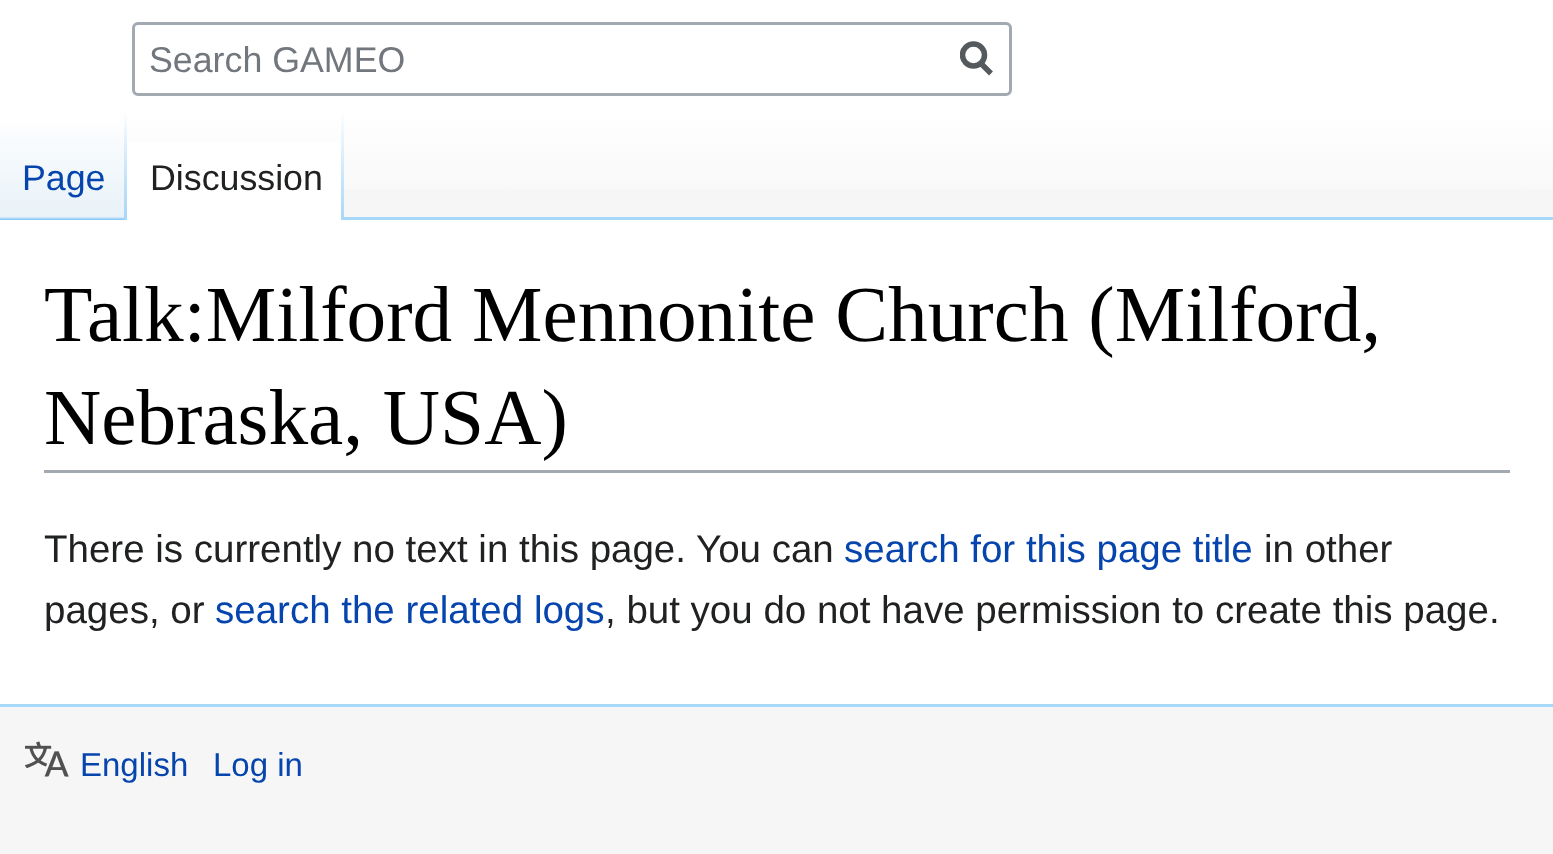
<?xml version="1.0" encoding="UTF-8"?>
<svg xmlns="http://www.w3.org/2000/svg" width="1553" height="854">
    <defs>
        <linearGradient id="g1" gradientUnits="userSpaceOnUse" x1="777" y1="0" x2="777" y2="220"><stop offset="0.5" stop-color="#FFFFFF"/><stop offset="1" stop-color="#F6F6F6"/></linearGradient>
        <clipPath id="clip1"><rect x="960" y="41" width="33" height="36"/></clipPath>
        <linearGradient id="g2" gradientUnits="userSpaceOnUse" x1="63" y1="220" x2="63" y2="110"><stop offset="0" stop-color="#77C1F6"/><stop offset="0.03" stop-color="#E8F2F8"/><stop offset="1" stop-color="#FFFFFF"/></linearGradient>
        <linearGradient id="g3" gradientUnits="userSpaceOnUse" x1="125" y1="110" x2="125" y2="220"><stop offset="0" stop-color="#A7D7F9" stop-opacity="0"/><stop offset="1" stop-color="#A7D7F9"/></linearGradient>
        <linearGradient id="g4" gradientUnits="userSpaceOnUse" x1="342" y1="110" x2="342" y2="220"><stop offset="0" stop-color="#FFFFFF"/><stop offset="1" stop-color="#A7D7F9"/></linearGradient>
    </defs>
    <rect width="100%" height="100%" fill="#F6F6F6"/>
    <rect x="0" y="0" width="1553" height="189" fill="url(#g1)"/>
    <rect x="133.5" y="23.5" width="877" height="71" rx="4.5" fill="none" stroke="#A2A9B1" stroke-width="3"/>
    <text x="149" y="72" font-family="Liberation Sans" font-size="35.75" fill="#72777D">Search GAMEO</text>
    <path d="M 991 73.5 L 980 62.5" fill="none" stroke="#54595D" stroke-width="5.5"/>
    <g clip-path="url(#clip1)">
        <circle cx="973.5" cy="55" r="11" fill="none" stroke="#54595D" stroke-width="5.5"/>
    </g>
    <rect x="0" y="126" width="127" height="94" fill="url(#g2)"/>
    <rect x="124" y="110" width="3" height="110" fill="url(#g3)"/>
    <text x="22" y="190" font-family="Liberation Sans" font-size="35.75" fill="#0645AD">Page</text>
    <rect x="127" y="141" width="214" height="79" fill="#FFFFFF"/>
    <rect x="341" y="110" width="3" height="110" fill="url(#g4)"/>
    <text x="150" y="190" font-family="Liberation Sans" font-size="35.75" fill="#202122">Discussion</text>
    <image x="25" y="741" width="44" height="36" href="img_01.png"/>
    <text x="80" y="776" font-family="Liberation Sans" font-size="33" fill="#0645AD">English</text>
    <text x="213" y="776" font-family="Liberation Sans" font-size="33" fill="#0645AD">Log in</text>
    <rect x="0" y="220" width="1553" height="484" fill="#FFFFFF"/>
    <rect x="344" y="217" width="1209" height="3" fill="#A7D7F9"/>
    <rect x="0" y="704" width="1553" height="3" fill="#A7D7F9"/>
    <rect x="44" y="470" width="1466" height="3" fill="#A2A9B1"/>
    <text font-family="Liberation Serif" font-size="79.25" fill="#000000">
        <tspan x="44" y="341">Talk:Milford Mennonite Church (Milford,</tspan>
        <tspan x="44" y="444">Nebraska, USA)</tspan>
    </text>
    <text x="44" y="562" font-family="Liberation Sans" font-size="38.5" fill="#202122">There is currently no text in this page. You can</text>
    <text x="844" y="562" font-family="Liberation Sans" font-size="38.5" fill="#0645AD">search for this page title</text>
    <text x="1264" y="562" font-family="Liberation Sans" font-size="38.5" fill="#202122">in other</text>
    <text x="44" y="623" font-family="Liberation Sans" font-size="38.5" fill="#202122">pages, or</text>
    <text x="215" y="623" font-family="Liberation Sans" font-size="38.5" fill="#0645AD">search the related logs</text>
    <text x="605" y="623" font-family="Liberation Sans" font-size="38.5" fill="#202122">, but you do not have permission to create this page.</text>
</svg>
